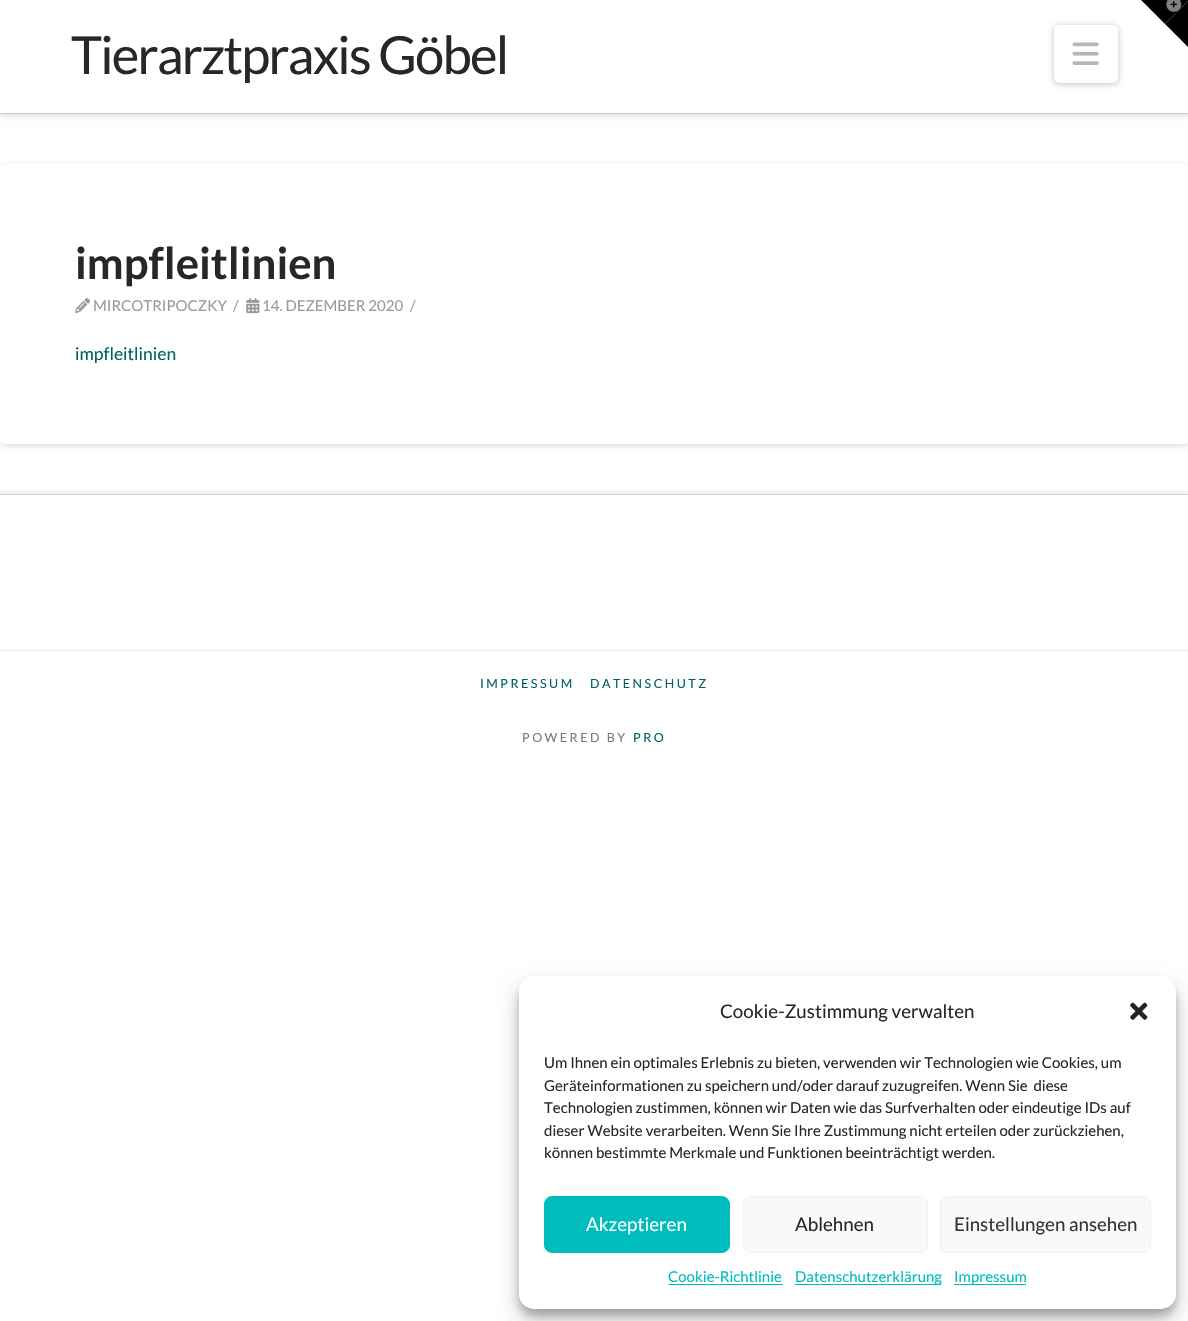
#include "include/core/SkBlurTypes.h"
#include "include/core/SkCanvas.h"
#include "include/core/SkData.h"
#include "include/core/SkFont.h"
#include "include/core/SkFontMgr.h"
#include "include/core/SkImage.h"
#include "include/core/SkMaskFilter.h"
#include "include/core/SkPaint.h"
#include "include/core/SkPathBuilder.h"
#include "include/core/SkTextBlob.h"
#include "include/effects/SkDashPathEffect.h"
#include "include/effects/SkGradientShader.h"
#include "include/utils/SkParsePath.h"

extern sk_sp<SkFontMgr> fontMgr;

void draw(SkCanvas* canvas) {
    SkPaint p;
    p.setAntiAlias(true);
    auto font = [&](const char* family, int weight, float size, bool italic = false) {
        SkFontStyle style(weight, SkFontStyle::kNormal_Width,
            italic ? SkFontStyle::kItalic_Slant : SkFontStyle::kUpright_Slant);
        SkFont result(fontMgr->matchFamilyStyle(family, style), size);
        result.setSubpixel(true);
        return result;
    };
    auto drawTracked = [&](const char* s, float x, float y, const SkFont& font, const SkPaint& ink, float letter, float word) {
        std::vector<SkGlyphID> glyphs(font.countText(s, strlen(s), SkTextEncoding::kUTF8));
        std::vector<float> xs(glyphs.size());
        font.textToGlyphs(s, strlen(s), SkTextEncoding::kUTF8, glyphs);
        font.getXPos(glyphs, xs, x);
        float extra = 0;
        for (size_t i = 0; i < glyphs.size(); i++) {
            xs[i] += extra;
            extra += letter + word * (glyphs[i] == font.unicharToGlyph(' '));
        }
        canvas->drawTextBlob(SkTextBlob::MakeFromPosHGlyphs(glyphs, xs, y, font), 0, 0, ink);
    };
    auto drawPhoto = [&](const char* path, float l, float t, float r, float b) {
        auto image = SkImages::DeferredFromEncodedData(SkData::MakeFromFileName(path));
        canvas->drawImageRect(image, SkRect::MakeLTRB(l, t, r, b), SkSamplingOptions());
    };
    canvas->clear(0xFFFFFFFF);
    p.setColor(0x21000000);
    p.setMaskFilter(SkMaskFilter::MakeBlur(kNormal_SkBlurStyle, 3));
    canvas->drawRect(SkRect::MakeLTRB(0, 3, 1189, 116), p);
    p.setMaskFilter(nullptr);
    p.setColor(0xFFFFFFFF);
    canvas->drawRect(SkRect::MakeLTRB(0, 0, 1188, 113), p);
    p.setColor(0xFF000000);
    canvas->drawPath(SkPathBuilder().moveTo(1141, 0).lineTo(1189, 0).lineTo(1165, 24).close().detach(), p);
    canvas->drawPath(SkPathBuilder().moveTo(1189, 0).lineTo(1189, 48).lineTo(1165, 24).close().detach(), p);
    drawPhoto("media/1.png", 1166, 0, 1182, 12);
    p.setColor(0xFFCCCCCC);
    canvas->drawRect(SkRect::MakeLTRB(0, 113, 1188, 114), p);
    auto font1 = font("Lato", 400, 52.5f);
    p.setColor(0xFF272727);
    drawTracked("Tierarztpraxis Göbel", 71, 74, font1, p, -1.8f, 0);
    p.setColor(0x40000000);
    p.setMaskFilter(SkMaskFilter::MakeBlur(kNormal_SkBlurStyle, 3));
    canvas->drawRoundRect(SkRect::MakeLTRB(1054, 26, 1118, 84), 5, 5, p);
    p.setMaskFilter(nullptr);
    p.setColor(0xFFFFFFFF);
    canvas->drawRoundRect(SkRect::MakeLTRB(1054, 25, 1118, 83), 5, 5, p);
    drawPhoto("media/2.png", 1072, 42, 1099, 65);
    p.setColor(0x21000000);
    p.setMaskFilter(SkMaskFilter::MakeBlur(kNormal_SkBlurStyle, 3));
    canvas->drawRoundRect(SkRect::MakeLTRB(0, 166, 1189, 446), 5, 5, p);
    p.setMaskFilter(nullptr);
    p.setColor(0xFFFFFFFF);
    canvas->drawRoundRect(SkRect::MakeLTRB(0, 164, 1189, 444), 5, 5, p);
    auto font2 = font("Lato", 700, 43.75f);
    p.setColor(0xFF272727);
    canvas->drawString("impfleitlinien", 75, 279, font2, p);
    drawPhoto("media/3.png", 75, 298, 90, 313);
    auto font3 = font("Lato", 400, 15);
    p.setColor(0xFF999999);
    canvas->drawString("MIRCOTRIPOCZKY", 93, 311, font3, p);
    canvas->drawString("/", 233, 311, font3, p);
    drawPhoto("media/4.png", 246, 298, 260, 314);
    canvas->drawString("14. DEZEMBER 2020", 262, 311, font3, p);
    canvas->drawString("/", 410, 311, font3, p);
    auto font4 = font("Lato", 400, 17.5f);
    p.setColor(0xFF006161);
    canvas->drawString("impfleitlinien", 75, 360, font4, p);
    canvas->save();
    canvas->clipRect(SkRect::MakeLTRB(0, 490, 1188, 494));
    p.setColor(0x12000000);
    p.setMaskFilter(SkMaskFilter::MakeBlur(kNormal_SkBlurStyle, 2));
    canvas->drawRect(SkRect::MakeLTRB(0, 491, 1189, 648), p);
    p.setMaskFilter(nullptr);
    canvas->restore();
    p.setColor(0xFFD4D4D4);
    canvas->drawRect(SkRect::MakeLTRB(0, 494, 1188, 495), p);
    p.setColor(0xFFE9E9E9);
    canvas->drawRect(SkRect::MakeLTRB(0, 650, 1188, 651), p);
    auto font5 = font("Lato", 400, 12.5f);
    p.setColor(0xFF006161);
    drawTracked("IMPRESSUM", 480, 688, font5, p, 2.5f, 0);
    drawTracked("DATENSCHUTZ", 590, 688, font5, p, 2.5f, 0);
    p.setColor(0xFF7A7A7A);
    drawTracked("POWERED BY", 522, 742, font5, p, 2.5f, 0);
    p.setColor(0xFF006161);
    drawTracked("PRO", 633, 742, font5, p, 2.5f, 0);
    p.setColor(0x3B000000);
    p.setMaskFilter(SkMaskFilter::MakeBlur(kNormal_SkBlurStyle, 4));
    canvas->drawRoundRect(SkRect::MakeLTRB(519, 984, 1176, 1316), 15, 15, p);
    p.setMaskFilter(nullptr);
    p.setColor(0x30000000);
    p.setMaskFilter(SkMaskFilter::MakeBlur(kNormal_SkBlurStyle, 12.5f));
    canvas->drawRoundRect(SkRect::MakeLTRB(519, 989, 1176, 1321), 15, 15, p);
    p.setMaskFilter(nullptr);
    p.setColor(0xFFFFFFFF);
    canvas->drawRoundRect(SkRect::MakeLTRB(519, 976, 1176, 1309), 15, 15, p);
    auto font6 = font("Lato", 400, 18.75f);
    p.setColor(0xFF272727);
    canvas->drawString("Cookie-Zustimmung verwalten", 720, 1018, font6, p);
    drawPhoto("media/5.png", 1130, 1002, 1148, 1020);
    {
        const struct { const char* s; float x, y; } items[] = {
            {"Um Ihnen ein optimales Erlebnis zu bieten, verwenden wir Technologien wie Cookies, um", 544, 1068},
            {"Geräteinformationen zu speichern und/oder darauf zuzugreifen. Wenn Sie  diese", 544, 1091},
            {"Technologien zustimmen, können wir Daten wie das Surfverhalten oder eindeutige IDs auf", 544, 1113},
            {"dieser Website verarbeiten. Wenn Sie Ihre Zustimmung nicht erteilen oder zurückziehen,", 544, 1136},
            {"können bestimmte Merkmale und Funktionen beeinträchtigt werden.", 544, 1158},
        };
        for (auto [s, x, y] : items) {
            canvas->drawString(s, x, y, font3, p);
        }
    }
    p.setColor(0xFF00BDBD);
    canvas->drawRoundRect(SkRect::MakeLTRB(544.5f, 1196.5f, 729.5f, 1252.5f), 7.5f, 7.5f, p);
    p.setStyle(SkPaint::kStroke_Style);
    p.setStrokeWidth(1);
    canvas->drawRoundRect(SkRect::MakeLTRB(544.5f, 1196.5f, 729.5f, 1252.5f), 7.5f, 7.5f, p);
    p.setStyle(SkPaint::kFill_Style);
    p.setColor(0xFFFFFFFF);
    canvas->drawString("Akzeptieren", 586, 1231, font6, p);
    p.setColor(0xFFF9F9F9);
    canvas->drawRoundRect(SkRect::MakeLTRB(743.5f, 1196.5f, 927.5f, 1252.5f), 7.5f, 7.5f, p);
    p.setStyle(SkPaint::kStroke_Style);
    p.setColor(0xFFF2F2F2);
    canvas->drawRoundRect(SkRect::MakeLTRB(743.5f, 1196.5f, 927.5f, 1252.5f), 7.5f, 7.5f, p);
    p.setStyle(SkPaint::kFill_Style);
    p.setColor(0xFF272727);
    canvas->drawString("Ablehnen", 795, 1231, font6, p);
    p.setColor(0xFFF9F9F9);
    canvas->drawRoundRect(SkRect::MakeLTRB(940.5f, 1196.5f, 1150.5f, 1252.5f), 7.5f, 7.5f, p);
    p.setStyle(SkPaint::kStroke_Style);
    p.setColor(0xFFF2F2F2);
    canvas->drawRoundRect(SkRect::MakeLTRB(940.5f, 1196.5f, 1150.5f, 1252.5f), 7.5f, 7.5f, p);
    p.setStyle(SkPaint::kFill_Style);
    p.setColor(0xFF333333);
    canvas->drawString("Einstellungen ansehen", 954, 1231, font6, p);
    p.setColor(0xFF00BDBD);
    canvas->drawString("Cookie-Richtlinie", 668, 1282, font3, p);
    canvas->drawRect(SkRect::MakeLTRB(669, 1284, 783, 1285), p);
    canvas->drawRect(SkRect::MakeLTRB(795, 1284, 941, 1285), p);
    canvas->drawString("Datenschutzerklärung", 795, 1282, font3, p);
    canvas->drawRect(SkRect::MakeLTRB(954, 1284, 1026, 1285), p);
    canvas->drawString("Impressum", 954, 1282, font3, p);
}
